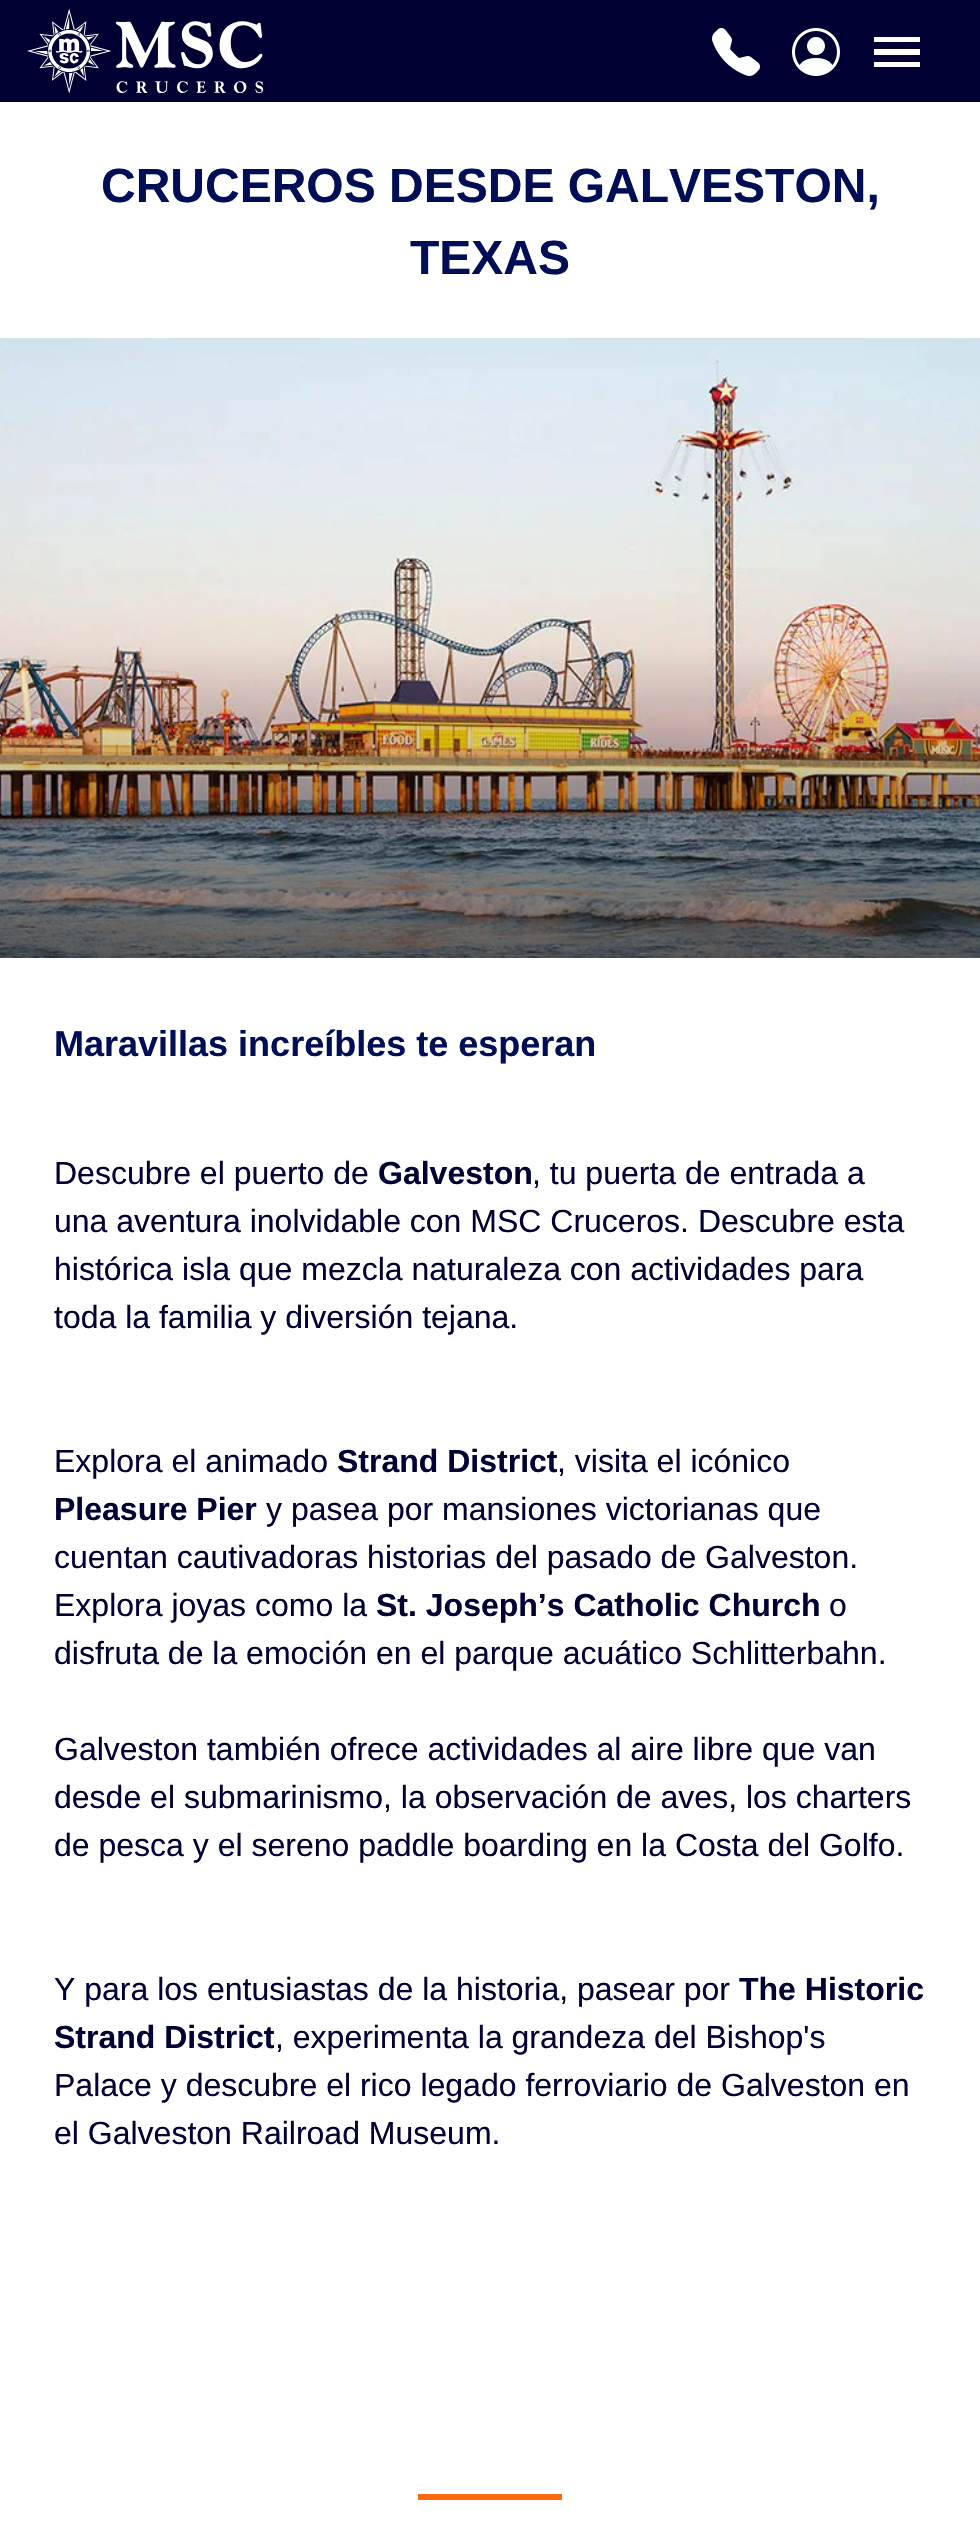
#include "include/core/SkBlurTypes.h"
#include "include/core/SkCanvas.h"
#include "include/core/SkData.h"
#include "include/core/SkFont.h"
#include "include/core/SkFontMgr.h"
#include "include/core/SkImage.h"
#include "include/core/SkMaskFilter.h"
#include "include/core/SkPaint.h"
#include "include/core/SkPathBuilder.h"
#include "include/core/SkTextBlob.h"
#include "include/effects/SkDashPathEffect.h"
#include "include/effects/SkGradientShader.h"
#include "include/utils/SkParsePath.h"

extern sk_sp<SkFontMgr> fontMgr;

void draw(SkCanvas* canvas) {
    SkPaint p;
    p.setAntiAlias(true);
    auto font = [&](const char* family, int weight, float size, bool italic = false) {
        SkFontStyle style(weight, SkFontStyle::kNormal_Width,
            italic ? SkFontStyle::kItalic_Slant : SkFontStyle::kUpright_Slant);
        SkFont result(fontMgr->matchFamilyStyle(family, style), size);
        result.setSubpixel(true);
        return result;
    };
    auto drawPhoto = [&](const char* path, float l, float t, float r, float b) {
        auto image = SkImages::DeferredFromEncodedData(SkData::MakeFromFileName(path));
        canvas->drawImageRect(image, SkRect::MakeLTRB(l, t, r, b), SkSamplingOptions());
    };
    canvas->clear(0xFFFFFFFF);
    p.setColor(0xFF000033);
    canvas->drawRect(SkRect::MakeLTRB(0, 0, 980, 102), p);
    drawPhoto("media/1.png", 27, 8, 264, 94);
    drawPhoto("media/2.png", 712, 28, 760, 76);
    drawPhoto("media/3.png", 792, 28, 840, 76);
    p.setColor(0xFFFFFFFF);
    canvas->drawPath(SkPathBuilder().moveTo(874, 67).lineTo(920, 67).lineTo(920, 62).lineTo(874, 62).close().moveTo(874, 55).lineTo(920, 55).lineTo(920, 49).lineTo(874, 49).close().moveTo(874, 37).lineTo(874, 42).lineTo(920, 42).lineTo(920, 37).close().detach(), p);
    auto font1 = font("Liberation Sans", 700, 48);
    p.setColor(0xFF000E55);
    canvas->drawString("CRUCEROS DESDE GALVESTON,", 101, 202, font1, p);
    canvas->drawString("TEXAS", 410, 274, font1, p);
    drawPhoto("media/4.png", 0, 338, 980, 958);
    auto font2 = font("Liberation Sans", 700, 36);
    canvas->drawString("Maravillas increíbles te esperan", 54, 1056, font2, p);
    auto font3 = font("Liberation Sans", 400, 32);
    p.setColor(0xFF000033);
    canvas->drawString("Descubre el puerto de", 54, 1184, font3, p);
    auto font4 = font("Liberation Sans", 700, 32);
    canvas->drawString("Galveston", 378, 1184, font4, p);
    {
        const struct { const char* s; float x, y; } items[] = {
            {", tu puerta de entrada a", 532, 1184},
            {"una aventura inolvidable con MSC Cruceros. Descubre esta", 54, 1232},
            {"histórica isla que mezcla naturaleza con actividades para", 54, 1280},
            {"toda la familia y diversión tejana.", 54, 1328},
            {"Explora el animado", 54, 1472},
        };
        for (auto [s, x, y] : items) {
            canvas->drawString(s, x, y, font3, p);
        }
    }
    canvas->drawString("Strand District", 337, 1472, font4, p);
    canvas->drawString(", visita el icónico", 557, 1472, font3, p);
    canvas->drawString("Pleasure Pier", 54, 1520, font4, p);
    {
        const struct { const char* s; float x, y; } items[] = {
            {"y pasea por mansiones victorianas que", 266, 1520},
            {"cuentan cautivadoras historias del pasado de Galveston.", 54, 1568},
            {"Explora joyas como la", 54, 1616},
        };
        for (auto [s, x, y] : items) {
            canvas->drawString(s, x, y, font3, p);
        }
    }
    canvas->drawString("St. Joseph’s Catholic Church", 376, 1616, font4, p);
    {
        const struct { const char* s; float x, y; } items[] = {
            {"o", 829, 1616},
            {"disfruta de la emoción en el parque acuático Schlitterbahn.", 54, 1664},
            {"Galveston también ofrece actividades al aire libre que van", 54, 1760},
            {"desde el submarinismo, la observación de aves, los charters", 54, 1808},
            {"de pesca y el sereno paddle boarding en la Costa del Golfo.", 54, 1856},
            {"Y para los entusiastas de la historia, pasear por", 54, 2000},
        };
        for (auto [s, x, y] : items) {
            canvas->drawString(s, x, y, font3, p);
        }
    }
    canvas->drawString("The Historic", 739, 2000, font4, p);
    canvas->drawString("Strand District", 54, 2048, font4, p);
    {
        const struct { const char* s; float x, y; } items[] = {
            {", experimenta la grandeza del Bishop's", 275, 2048},
            {"Palace y descubre el rico legado ferroviario de Galveston en", 54, 2096},
            {"el Galveston Railroad Museum.", 54, 2144},
        };
        for (auto [s, x, y] : items) {
            canvas->drawString(s, x, y, font3, p);
        }
    }
    p.setColor(0xFFFF690E);
    canvas->drawRect(SkRect::MakeLTRB(418, 2494, 562, 2500), p);
}
